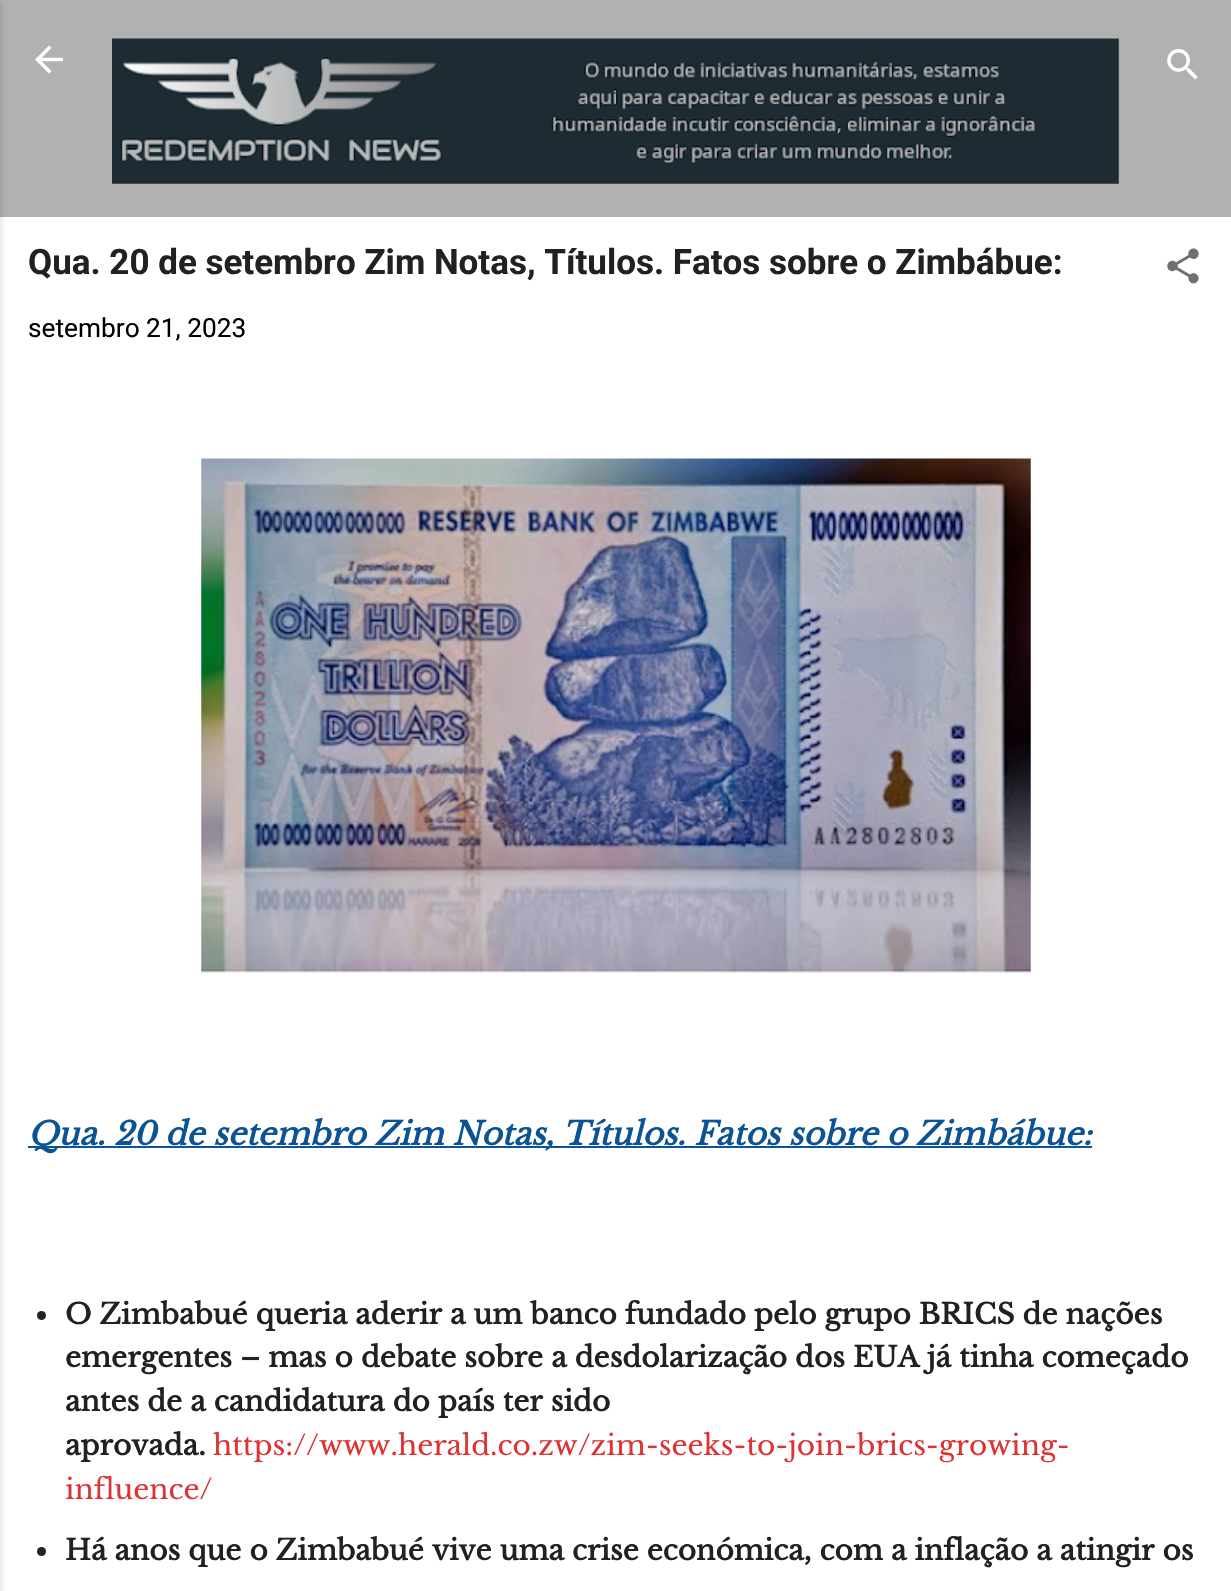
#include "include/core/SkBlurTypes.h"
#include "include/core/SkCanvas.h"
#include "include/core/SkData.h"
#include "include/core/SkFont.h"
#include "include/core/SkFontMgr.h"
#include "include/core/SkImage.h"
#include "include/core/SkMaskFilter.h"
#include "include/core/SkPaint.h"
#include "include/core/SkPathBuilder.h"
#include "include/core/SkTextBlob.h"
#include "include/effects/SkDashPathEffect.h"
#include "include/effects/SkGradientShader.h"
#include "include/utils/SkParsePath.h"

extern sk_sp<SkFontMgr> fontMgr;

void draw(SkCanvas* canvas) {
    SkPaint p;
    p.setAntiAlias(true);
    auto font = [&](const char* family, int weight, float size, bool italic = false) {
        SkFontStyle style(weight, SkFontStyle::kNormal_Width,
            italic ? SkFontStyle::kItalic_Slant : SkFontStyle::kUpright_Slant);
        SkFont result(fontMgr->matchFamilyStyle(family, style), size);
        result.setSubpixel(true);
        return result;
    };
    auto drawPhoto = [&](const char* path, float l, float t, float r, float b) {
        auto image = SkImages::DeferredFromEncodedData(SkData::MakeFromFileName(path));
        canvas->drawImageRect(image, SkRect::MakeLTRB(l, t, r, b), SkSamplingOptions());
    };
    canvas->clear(0xFFB1B1B1);
    p.setColor(0xFFFFFFFF);
    canvas->drawRect(SkRect::MakeLTRB(0, 217, 1231, 1591), p);
    p.setColor(0x1A000000);
    p.setMaskFilter(SkMaskFilter::MakeBlur(kNormal_SkBlurStyle, 2.5f));
    canvas->drawRect(SkRect::MakeLTRB(-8, 2, 2, 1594), p);
    p.setMaskFilter(nullptr);
    drawPhoto("media/1.png", 35, 45, 63, 74);
    drawPhoto("media/2.png", 112, 38, 1120, 184);
    drawPhoto("media/3.png", 1167, 49, 1198, 80);
    auto font1 = font("Roboto", 700, 35);
    p.setColor(0xFF212121);
    canvas->drawString("Qua. 20 de setembro Zim Notas, Títulos. Fatos sobre o Zimbábue:", 28, 274, font1, p);
    drawPhoto("media/4.png", 1167, 248, 1199, 284);
    auto font2 = font("Roboto", 400, 26.25f);
    p.setColor(0xFF000000);
    canvas->drawString("setembro 21, 2023", 28, 337, font2, p);
    drawPhoto("media/5.png", 201, 458, 1031, 973);
    p.setColor(0xFF0B5394);
    canvas->drawRect(SkRect::MakeLTRB(28, 1146, 1092, 1148), p);
    auto font3 = font("Libre Baskerville", 700, 31.5f, true);
    canvas->drawString("Qua. 20 de setembro Zim Notas, Títulos. Fatos sobre o Zimbábue:", 28, 1145, font3, p);
    p.setColor(0xFF222222);
    canvas->drawCircle(41.5f, 1315.5f, 4.5f, p);
    auto font4 = font("Libre Baskerville", 700, 28);
    p.setColor(0xFF212121);
    {
        const struct { const char* s; float x, y; } items[] = {
            {"O Zimbabué queria aderir a um banco fundado pelo grupo BRICS de nações", 65, 1324},
            {"emergentes – mas o debate sobre a desdolarização dos EUA já tinha começado", 65, 1367},
            {"antes de a candidatura do país ter sido", 65, 1411},
            {"aprovada.", 65, 1455},
        };
        for (auto [s, x, y] : items) {
            canvas->drawString(s, x, y, font4, p);
        }
    }
    auto font5 = font("Libre Baskerville", 400, 28);
    p.setColor(0xFFDD3333);
    canvas->drawString("https://www.herald.co.zw/zim-seeks-to-join-brics-growing-", 213, 1455, font5, p);
    canvas->drawString("influence/", 65, 1499, font5, p);
    p.setColor(0xFF222222);
    canvas->drawCircle(41.5f, 1551.5f, 4.5f, p);
    p.setColor(0xFF212121);
    canvas->drawString("Há anos que o Zimbabué vive uma crise económica, com a inflação a atingir os", 65, 1560, font4, p);
}
